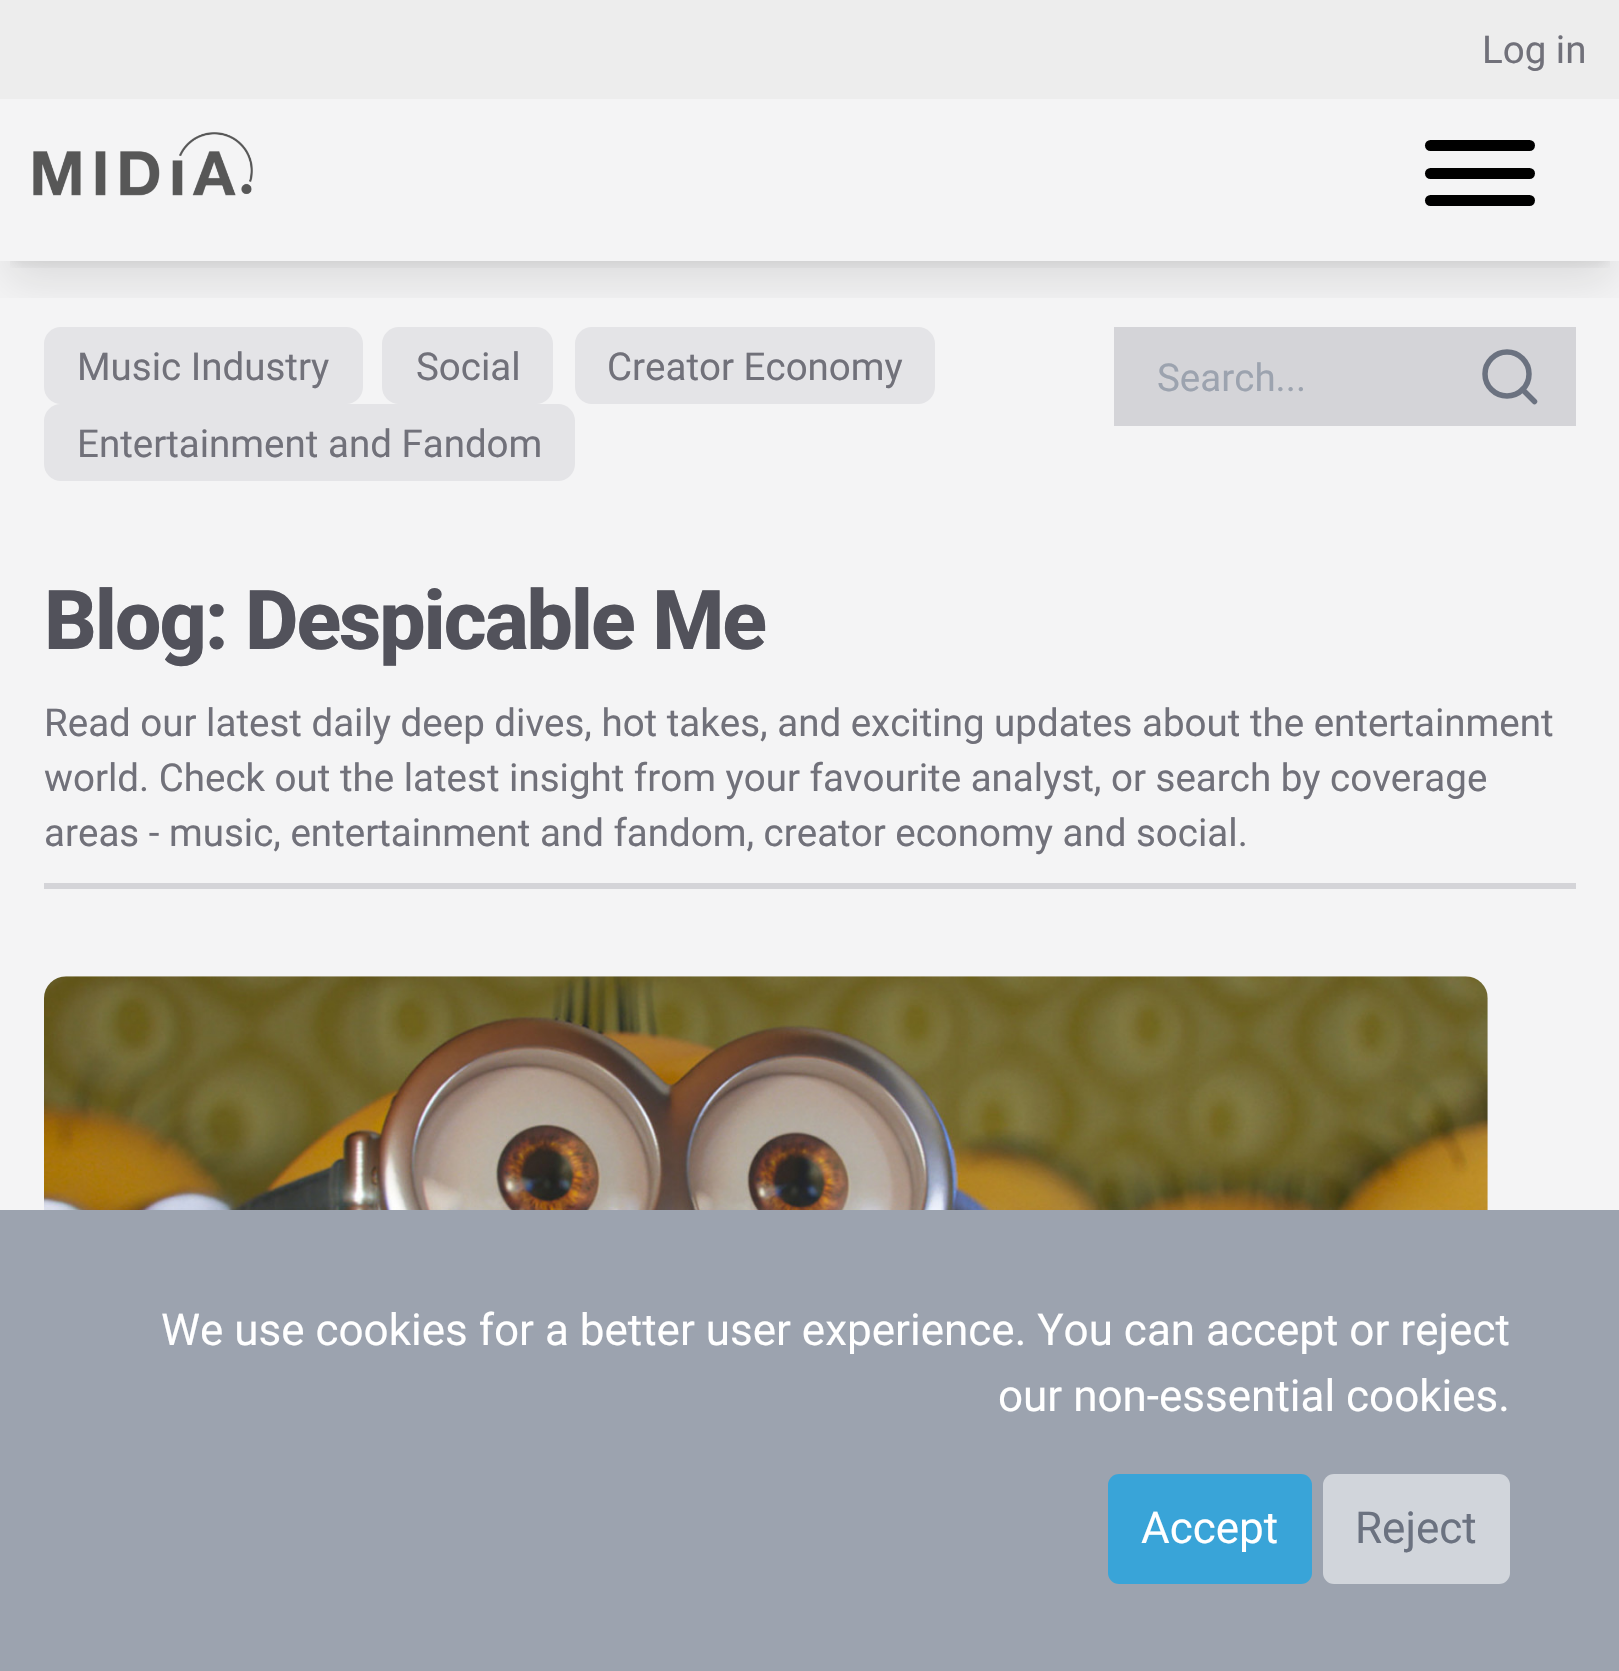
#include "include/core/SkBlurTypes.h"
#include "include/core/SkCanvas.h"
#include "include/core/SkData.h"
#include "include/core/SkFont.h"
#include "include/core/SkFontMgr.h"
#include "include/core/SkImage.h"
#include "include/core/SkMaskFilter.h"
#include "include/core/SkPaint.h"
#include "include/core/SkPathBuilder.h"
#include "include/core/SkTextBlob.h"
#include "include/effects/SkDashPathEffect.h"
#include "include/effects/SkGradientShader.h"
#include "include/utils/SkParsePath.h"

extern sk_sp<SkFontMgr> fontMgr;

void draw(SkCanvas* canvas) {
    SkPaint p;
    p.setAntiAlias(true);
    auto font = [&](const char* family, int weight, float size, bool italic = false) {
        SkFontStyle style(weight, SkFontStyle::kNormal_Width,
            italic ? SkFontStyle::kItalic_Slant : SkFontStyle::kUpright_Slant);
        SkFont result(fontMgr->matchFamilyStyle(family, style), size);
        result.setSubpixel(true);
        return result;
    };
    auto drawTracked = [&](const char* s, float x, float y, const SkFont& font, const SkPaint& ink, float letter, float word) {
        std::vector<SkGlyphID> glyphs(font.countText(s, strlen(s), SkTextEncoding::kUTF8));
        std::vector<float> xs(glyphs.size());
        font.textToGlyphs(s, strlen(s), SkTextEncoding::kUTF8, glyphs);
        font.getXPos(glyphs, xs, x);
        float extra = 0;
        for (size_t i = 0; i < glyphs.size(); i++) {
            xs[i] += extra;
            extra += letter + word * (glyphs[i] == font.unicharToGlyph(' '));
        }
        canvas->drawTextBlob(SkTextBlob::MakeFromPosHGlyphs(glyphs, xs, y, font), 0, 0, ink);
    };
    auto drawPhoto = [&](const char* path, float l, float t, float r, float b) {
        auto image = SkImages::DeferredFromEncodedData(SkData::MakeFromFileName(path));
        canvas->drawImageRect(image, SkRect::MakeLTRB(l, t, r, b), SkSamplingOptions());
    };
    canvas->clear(0xFFF4F4F5);
    p.setColor(0xFFEDEDED);
    canvas->drawRect(SkRect::MakeLTRB(0, 0, 1619, 99), p);
    auto font1 = font("Roboto", 400, 38.5f);
    p.setColor(0xFF71717A);
    canvas->drawString("Log in", 1482, 63, font1, p);
    canvas->save();
    canvas->clipRect(SkRect::MakeLTRB(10, 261, 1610, 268));
    p.setColor(0x1A000000);
    p.setMaskFilter(SkMaskFilter::MakeBlur(kNormal_SkBlurStyle, 8));
    canvas->drawRect(SkRect::MakeLTRB(11, 121, 1609, 261), p);
    p.setMaskFilter(nullptr);
    canvas->restore();
    p.setColor(0xFFE4E4E7);
    canvas->drawRoundRect(SkRect::MakeLTRB(44, 327, 363, 404), 17, 17, p);
    canvas->drawRoundRect(SkRect::MakeLTRB(382, 327, 553, 404), 17, 17, p);
    canvas->drawRoundRect(SkRect::MakeLTRB(575, 327, 935, 404), 17, 17, p);
    canvas->save();
    canvas->clipRect(SkRect::MakeLTRB(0, 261, 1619, 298));
    p.setColor(0x1A000000);
    p.setMaskFilter(SkMaskFilter::MakeBlur(kNormal_SkBlurStyle, 20.5f));
    canvas->drawRect(SkRect::MakeLTRB(8, 135, 1612, 281), p);
    p.setMaskFilter(nullptr);
    canvas->restore();
    drawPhoto("media/1.png", 33, 132, 253, 196);
    p.setColor(0xFF000000);
    canvas->drawRoundRect(SkRect::MakeLTRB(1425, 195, 1535, 206), 5.5f, 5.5f, p);
    canvas->drawRoundRect(SkRect::MakeLTRB(1425, 140, 1535, 151), 5.5f, 5.5f, p);
    canvas->drawRoundRect(SkRect::MakeLTRB(1425, 168, 1535, 179), 5.5f, 5.5f, p);
    p.setColor(0xFF71717A);
    {
        const struct { const char* s; float x, y; } items[] = {
            {"Music Industry", 77, 380},
            {"Social", 416, 380},
            {"Creator Economy", 607, 380},
        };
        for (auto [s, x, y] : items) {
            canvas->drawString(s, x, y, font1, p);
        }
    }
    p.setColor(0xFFE4E4E7);
    canvas->drawRoundRect(SkRect::MakeLTRB(44, 404, 575, 481), 17, 17, p);
    p.setColor(0xFF71717A);
    canvas->drawString("Entertainment and Fandom", 77, 457, font1, p);
    p.setColor(0xFFD4D4D8);
    canvas->drawRect(SkRect::MakeLTRB(1114, 327, 1576, 426), p);
    p.setColor(0xFF9CA3AF);
    canvas->drawString("Search...", 1157, 391, font1, p);
    p.setStyle(SkPaint::kStroke_Style);
    p.setStrokeWidth(5.5f);
    p.setColor(0xFF6B7280);
    canvas->drawCircle(1507, 374, 22, p);
    p.setStrokeCap(SkPaint::kRound_Cap);
    p.setStrokeJoin(SkPaint::kRound_Join);
    canvas->drawPath(SkPathBuilder().moveTo(1534.5f, 401.5f).lineTo(1522.5f, 389.5f).detach(), p);
    p.setStyle(SkPaint::kFill_Style);
    p.setColor(0xFFD4D4D8);
    canvas->drawRect(SkRect::MakeLTRB(44, 883, 1576, 889), p);
    auto font2 = font("Roboto", 800, 82.5f);
    p.setColor(0xFF52525B);
    drawTracked("Blog: Despicable Me", 44, 649, font2, p, -2.1f, 0);
    p.setColor(0xFF71717A);
    {
        const struct { const char* s; float x, y; } items[] = {
            {"Read our latest daily deep dives, hot takes, and exciting updates about the entertainment", 44, 736},
            {"world. Check out the latest insight from your favourite analyst, or search by coverage", 44, 791},
            {"areas - music, entertainment and fandom, creator economy and social.", 44, 846},
        };
        for (auto [s, x, y] : items) {
            canvas->drawString(s, x, y, font1, p);
        }
    }
    drawPhoto("media/2.png", 44, 976, 1488, 1210);
    p.setColor(0xFF9CA3AF);
    canvas->drawRect(SkRect::MakeLTRB(0, 1210, 1619, 1671), p);
    auto font3 = font("Roboto", 400, 44);
    p.setColor(0xFFFFFFFF);
    canvas->drawString("We use cookies for a better user experience. You can accept or reject", 161, 1345, font3, p);
    canvas->drawString("our non-essential cookies.", 998, 1411, font3, p);
    p.setColor(0xFF39A4D8);
    canvas->drawRoundRect(SkRect::MakeLTRB(1108, 1474, 1312, 1584), 11, 11, p);
    p.setColor(0xFFFFFFFF);
    canvas->drawString("Accept", 1141, 1543, font3, p);
    p.setColor(0xFFD1D5DB);
    canvas->drawRoundRect(SkRect::MakeLTRB(1323, 1474, 1510, 1584), 11, 11, p);
    p.setColor(0xFF6B7280);
    canvas->drawString("Reject", 1355, 1543, font3, p);
}
